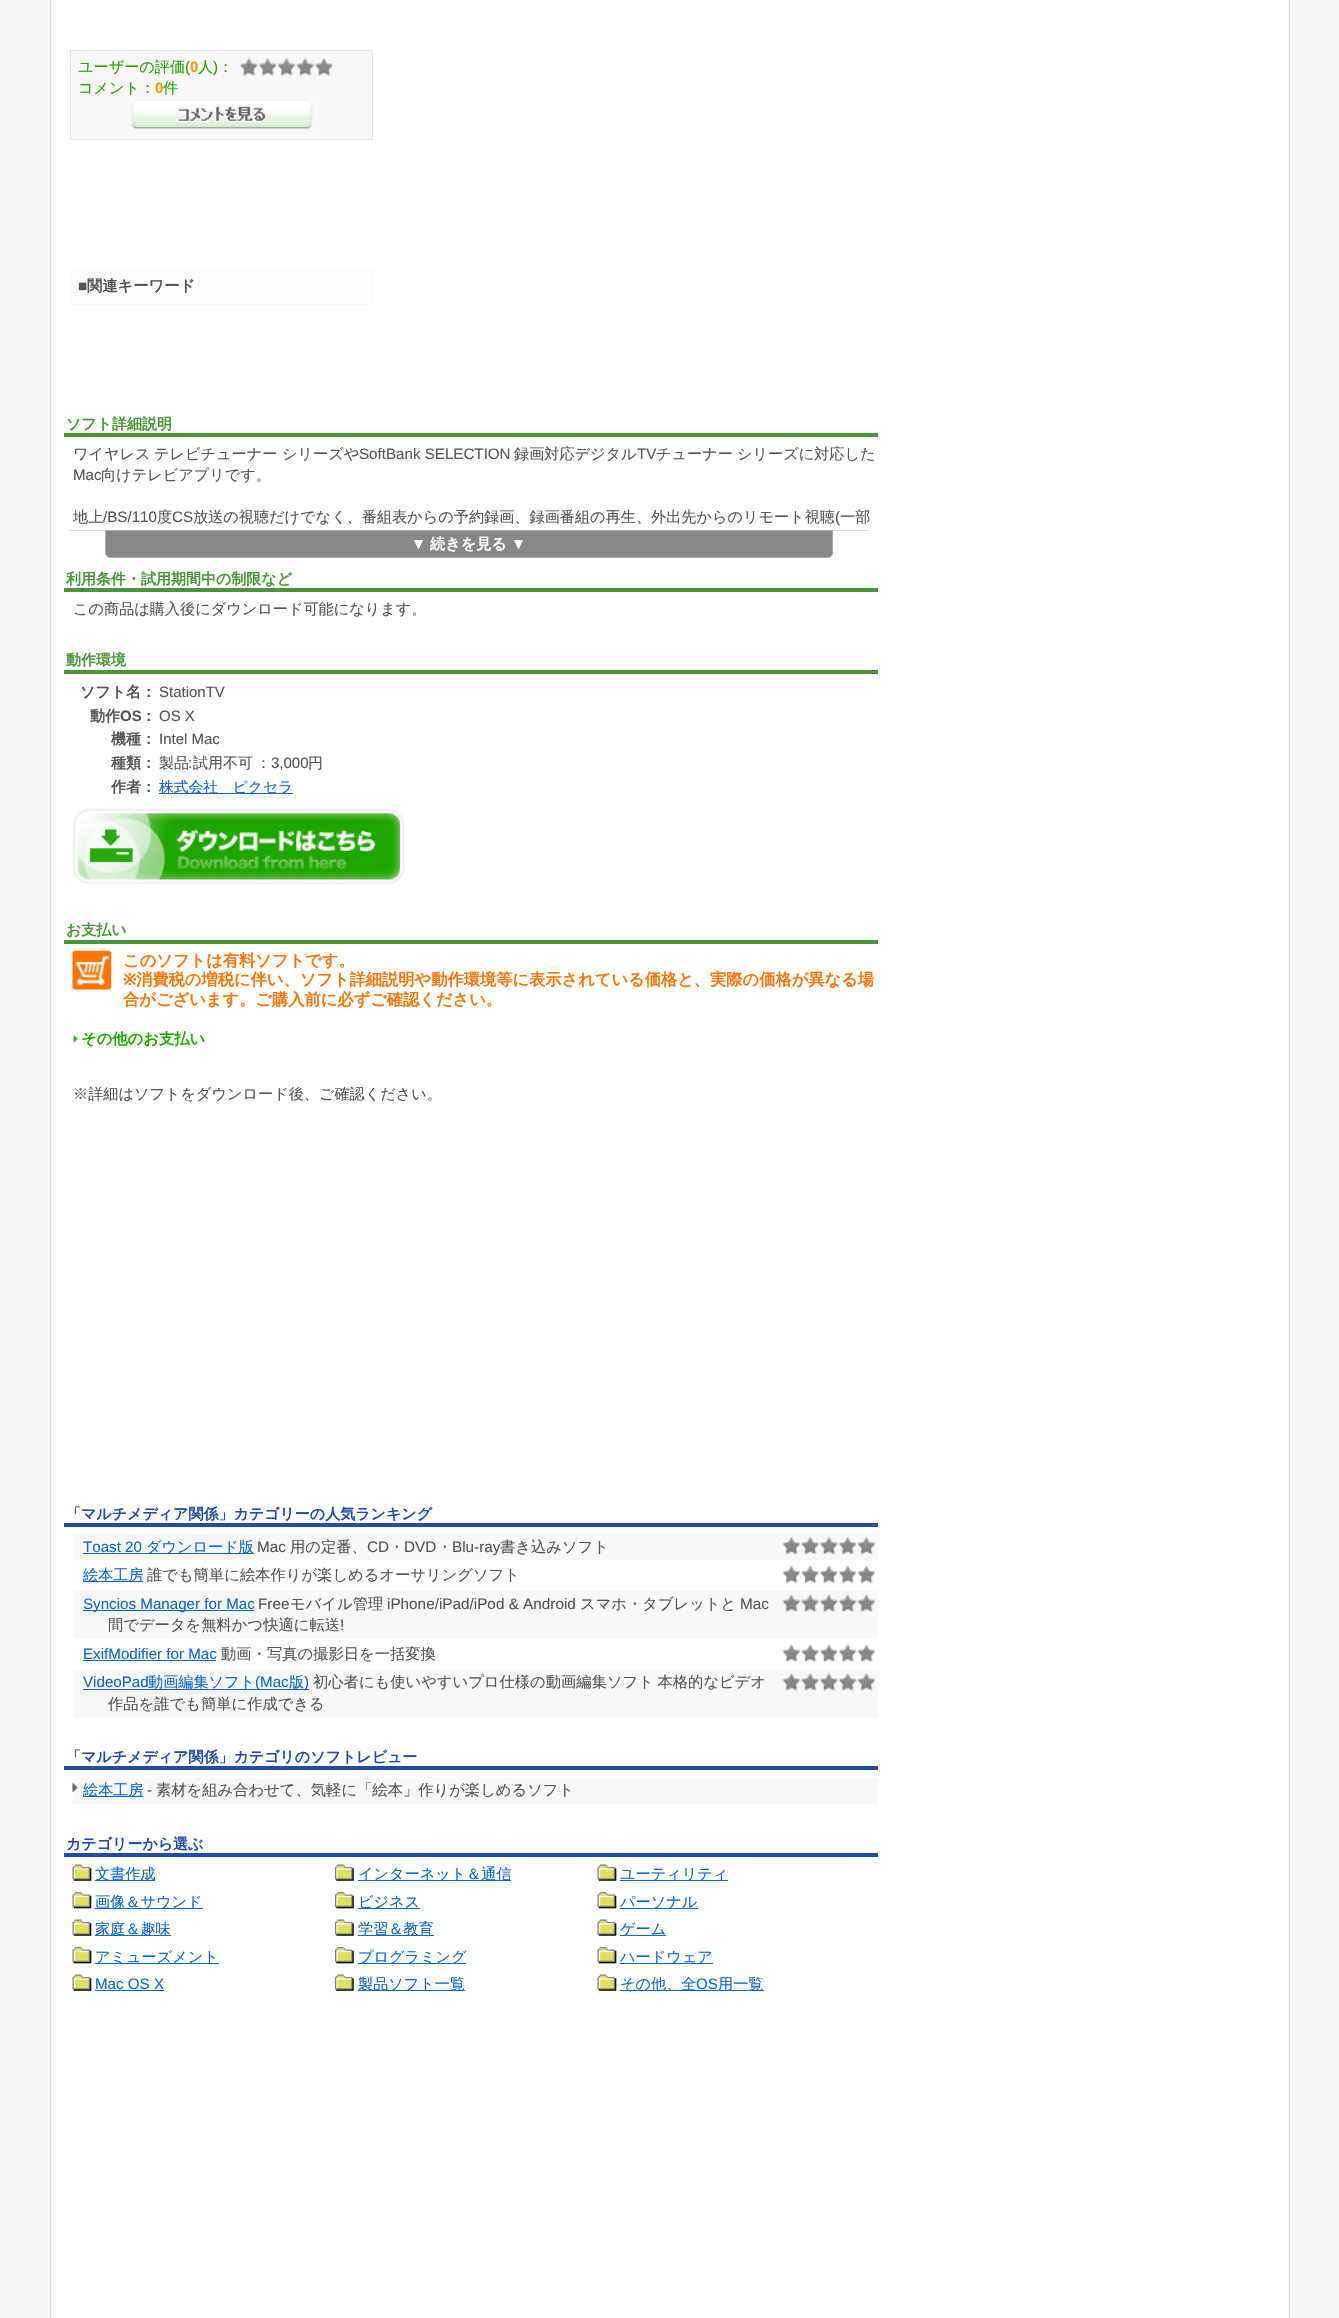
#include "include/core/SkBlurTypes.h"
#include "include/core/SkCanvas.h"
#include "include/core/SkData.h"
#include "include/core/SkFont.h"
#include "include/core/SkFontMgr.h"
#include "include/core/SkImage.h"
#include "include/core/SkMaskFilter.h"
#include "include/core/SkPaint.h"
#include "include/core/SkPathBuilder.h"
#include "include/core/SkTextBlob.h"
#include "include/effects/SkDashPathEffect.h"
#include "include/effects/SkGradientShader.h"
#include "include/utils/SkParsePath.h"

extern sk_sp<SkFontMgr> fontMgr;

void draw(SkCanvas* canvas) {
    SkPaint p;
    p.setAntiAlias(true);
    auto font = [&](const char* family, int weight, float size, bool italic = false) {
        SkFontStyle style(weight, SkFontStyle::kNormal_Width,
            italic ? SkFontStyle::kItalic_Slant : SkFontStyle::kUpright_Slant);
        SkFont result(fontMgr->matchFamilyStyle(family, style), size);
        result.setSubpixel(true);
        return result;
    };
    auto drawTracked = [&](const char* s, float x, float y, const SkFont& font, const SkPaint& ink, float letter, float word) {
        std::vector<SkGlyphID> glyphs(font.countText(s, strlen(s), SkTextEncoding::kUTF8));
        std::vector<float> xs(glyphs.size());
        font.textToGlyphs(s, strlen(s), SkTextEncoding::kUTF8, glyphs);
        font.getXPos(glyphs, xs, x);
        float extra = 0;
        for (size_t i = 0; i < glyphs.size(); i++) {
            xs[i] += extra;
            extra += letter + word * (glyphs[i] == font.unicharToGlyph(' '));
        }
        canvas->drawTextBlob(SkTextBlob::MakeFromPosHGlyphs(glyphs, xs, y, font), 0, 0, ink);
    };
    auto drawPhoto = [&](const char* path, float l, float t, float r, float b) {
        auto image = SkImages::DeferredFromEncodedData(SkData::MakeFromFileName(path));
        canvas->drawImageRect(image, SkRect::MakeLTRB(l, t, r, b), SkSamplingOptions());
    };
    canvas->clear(0xFFF5F5F5);
    drawPhoto("media/1.png", 50, 0, 1290, 2318);
    p.setColor(0xFFF8F8F8);
    canvas->drawRect(SkRect::MakeLTRB(70.5f, 50.5f, 372.5f, 139.5f), p);
    p.setStyle(SkPaint::kStroke_Style);
    p.setStrokeWidth(1);
    p.setColor(0xFFE3E3E3);
    canvas->drawRect(SkRect::MakeLTRB(70.5f, 50.5f, 372.5f, 139.5f), p);
    auto font1 = font("WenQuanYi Zen Hei", 500, 15.15f);
    p.setStyle(SkPaint::kFill_Style);
    p.setColor(0xFF1FA400);
    canvas->drawString("ユーザーの評価", 78, 72, font1, p);
    auto font2 = font("Liberation Sans", 400, 15.15f);
    canvas->drawString("(", 185, 72, font2, p);
    auto font3 = font("Liberation Sans", 700, 15);
    p.setColor(0xFFFF9900);
    canvas->drawString("0", 190, 72, font3, p);
    p.setColor(0xFF1FA400);
    canvas->drawString("人", 198, 72, font1, p);
    canvas->drawString(")", 213, 72, font2, p);
    canvas->drawString("：", 218, 72, font1, p);
    drawPhoto("media/2.png", 240, 58, 333, 76);
    canvas->drawString("コメント：", 78, 93, font1, p);
    p.setColor(0xFFFF9900);
    canvas->drawString("0", 155, 93, font3, p);
    p.setColor(0xFF1FA400);
    canvas->drawString("件", 163, 93, font1, p);
    drawPhoto("media/3.png", 131, 99, 313, 130);
    p.setColor(0xFFFCFCFC);
    canvas->drawRect(SkRect::MakeLTRB(70.5f, 269.5f, 372.5f, 304.5f), p);
    p.setStyle(SkPaint::kStroke_Style);
    p.setColor(0xFFF8F8F8);
    canvas->drawRect(SkRect::MakeLTRB(70.5f, 269.5f, 372.5f, 304.5f), p);
    auto font4 = font("Liberation Sans", 700, 15.3f);
    p.setStyle(SkPaint::kFill_Style);
    p.setColor(0xFF555555);
    canvas->drawString("■", 78, 291, font4, p);
    auto font5 = font("WenQuanYi Zen Hei", 700, 15.3f);
    canvas->drawString("関連キーワード", 87, 291, font5, p);
    p.setColor(0xFF489635);
    canvas->drawRect(SkRect::MakeLTRB(64, 433, 878, 437), p);
    auto font6 = font("WenQuanYi Zen Hei", 700, 15);
    canvas->drawString("ソフト詳細説明", 66, 429, font6, p);
    p.setColor(0xFF555555);
    {
        const struct { const char* s; float x, y; } items[] = {
            {"ワイヤレス", 73, 459},
            {"テレビチューナー", 154, 459},
            {"シリーズや", 282, 459},
        };
        for (auto [s, x, y] : items) {
            canvas->drawString(s, x, y, font1, p);
        }
    }
    canvas->drawString("SoftBank SELECTION", 359, 459, font2, p);
    canvas->drawString("録画対応デジタル", 514, 459, font1, p);
    canvas->drawString("TV", 637, 459, font2, p);
    canvas->drawString("チューナー", 656, 459, font1, p);
    canvas->drawString("シリーズに対応した", 737, 459, font1, p);
    canvas->drawString("Mac", 73, 480, font2, p);
    canvas->drawString("向けテレビアプリです。", 101, 480, font1, p);
    canvas->drawString("地上", 73, 522, font1, p);
    canvas->drawString("/BS/110", 103, 522, font2, p);
    canvas->drawString("度", 157, 522, font1, p);
    canvas->drawString("CS", 172, 522, font2, p);
    canvas->drawString("放送の視聴だけでなく、番組表からの予約録画、録画番組の再生、外出先からのリモート視聴", 193, 522, font1, p);
    canvas->drawString("(", 835, 522, font2, p);
    canvas->drawString("一部", 840, 522, font1, p);
    p.setColor(0xFFDDDDDD);
    canvas->drawRect(SkRect::MakeLTRB(69, 530, 869, 531), p);
    p.setColor(0xFF888888);
    canvas->drawPath(SkPathBuilder().moveTo(105.5f, 530.5f).lineTo(832.5f, 530.5f).lineTo(832.5f, 553).cubicTo(832.5f, 555.5f, 830.5f, 557.5f, 828, 557.5f).lineTo(110, 557.5f).cubicTo(107.5f, 557.5f, 105.5f, 555.5f, 105.5f, 553).close().detach(), p);
    p.setStyle(SkPaint::kStroke_Style);
    p.setColor(0xFFAAAAAA);
    canvas->drawPath(SkPathBuilder().moveTo(105.5f, 530.5f).lineTo(832.5f, 530.5f).lineTo(832.5f, 553).cubicTo(832.5f, 555.5f, 830.5f, 557.5f, 828, 557.5f).lineTo(110, 557.5f).cubicTo(107.5f, 557.5f, 105.5f, 555.5f, 105.5f, 553).close().detach(), p);
    auto font7 = font("Liberation Sans", 700, 15.15f);
    p.setStyle(SkPaint::kFill_Style);
    p.setColor(0xFFFFFFFF);
    canvas->drawString("▼", 411, 549, font7, p);
    auto font8 = font("WenQuanYi Zen Hei", 700, 15.15f);
    canvas->drawString("続きを見る", 430, 549, font8, p);
    canvas->drawString("▼", 511, 549, font7, p);
    p.setColor(0xFF489635);
    canvas->drawRect(SkRect::MakeLTRB(64, 588, 878, 592), p);
    canvas->drawString("利用条件・試用期間中の制限など", 66, 584, font6, p);
    p.setColor(0xFF555555);
    canvas->drawString("この商品は購入後にダウンロード可能になります。", 73, 614, font1, p);
    p.setColor(0xFF489635);
    canvas->drawRect(SkRect::MakeLTRB(64, 670, 878, 674), p);
    canvas->drawString("動作環境", 66, 665, font6, p);
    p.setColor(0xFF555555);
    canvas->drawString("ソフト名：", 80, 697, font6, p);
    auto font9 = font("Liberation Sans", 400, 15);
    canvas->drawString("StationTV", 159, 697, font9, p);
    canvas->drawString("動作", 90, 721, font6, p);
    canvas->drawString("OS", 120, 721, font3, p);
    canvas->drawString("：", 141, 721, font6, p);
    canvas->drawString("OS X", 159, 721, font9, p);
    canvas->drawString("機種：", 111, 744, font6, p);
    canvas->drawString("Intel Mac", 159, 744, font9, p);
    canvas->drawString("種類：", 111, 768, font6, p);
    auto font10 = font("WenQuanYi Zen Hei", 500, 15);
    canvas->drawString("製品", 159, 768, font10, p);
    canvas->drawString(":", 188, 768, font9, p);
    canvas->drawString("試用不可", 193, 768, font10, p);
    canvas->drawString("：", 256, 768, font10, p);
    canvas->drawString("3,000", 271, 768, font9, p);
    canvas->drawString("円", 308, 768, font10, p);
    canvas->drawString("作者：", 111, 792, font6, p);
    p.setColor(0xFF0E69CD);
    canvas->drawRect(SkRect::MakeLTRB(159, 793, 293, 794), p);
    auto font11 = font("WenQuanYi Zen Hei", 500, 14.75f);
    canvas->drawString("株式会社　ピクセラ", 159, 792, font11, p);
    drawPhoto("media/4.png", 72, 808, 405, 885);
    p.setColor(0xFF489635);
    canvas->drawRect(SkRect::MakeLTRB(64, 940, 878, 944), p);
    canvas->drawString("お支払い", 66, 935, font6, p);
    drawPhoto("media/5.png", 72, 950, 112, 990);
    auto font12 = font("WenQuanYi Zen Hei", 700, 16.25f);
    p.setColor(0xFFFF7407);
    canvas->drawString("このソフトは有料ソフトです。", 123, 966, font12, p);
    auto font13 = font("Noto Sans", 700, 16.25f);
    canvas->drawString("※", 123, 985, font13, p);
    canvas->drawString("消費税の増税に伴い、ソフト詳細説明や動作環境等に表示されている価格と、実際の価格が異なる場", 136, 985, font12, p);
    canvas->drawString("合がございます。ご購入前に必ずご確認ください。", 123, 1005, font12, p);
    drawPhoto("media/6.png", 73, 1035, 78, 1043);
    p.setColor(0xFF1FA400);
    canvas->drawString("その他のお支払い", 81, 1044, font5, p);
    p.setColor(0xFF555555);
    canvas->drawString("※詳細はソフトをダウンロード後、ご確認ください。", 73, 1099, font1, p);
    p.setColor(0xFF214DA6);
    canvas->drawRect(SkRect::MakeLTRB(64, 1523, 878, 1527), p);
    canvas->drawString("「マルチメディア関係」カテゴリーの人気ランキング", 66, 1519, font6, p);
    p.setColor(0xFFF8F8F8);
    canvas->drawRect(SkRect::MakeLTRB(73, 1534, 878, 1560), p);
    p.setColor(0xFF0E69CD);
    canvas->drawString("Toast 20", 83, 1552, font2, p);
    canvas->drawRect(SkRect::MakeLTRB(83, 1553, 254, 1554), p);
    canvas->drawString("ダウンロード版", 146, 1552, font1, p);
    auto font14 = font("Liberation Sans", 400, 15.3f);
    p.setColor(0xFF555555);
    canvas->drawString("Mac", 257, 1552, font14, p);
    auto font15 = font("WenQuanYi Zen Hei", 500, 15.3f);
    canvas->drawString("用の定番、", 290, 1552, font15, p);
    canvas->drawString("CD", 367, 1552, font14, p);
    canvas->drawString("・", 389, 1552, font15, p);
    canvas->drawString("DVD", 404, 1552, font14, p);
    canvas->drawString("・", 437, 1552, font15, p);
    canvas->drawString("Blu-ray", 452, 1552, font14, p);
    canvas->drawString("書き込みソフト", 500, 1552, font15, p);
    drawPhoto("media/7.png", 782, 1536, 875, 1555);
    p.setColor(0xFF0E69CD);
    canvas->drawRect(SkRect::MakeLTRB(83, 1581, 143, 1582), p);
    canvas->drawString("絵本工房", 83, 1580, font1, p);
    p.setColor(0xFF555555);
    canvas->drawString("誰でも簡単に絵本作りが楽しめるオーサリングソフト", 147, 1580, font15, p);
    drawPhoto("media/8.png", 782, 1565, 875, 1584);
    p.setColor(0xFFF8F8F8);
    canvas->drawRect(SkRect::MakeLTRB(73, 1591, 878, 1639), p);
    p.setColor(0xFF0E69CD);
    canvas->drawRect(SkRect::MakeLTRB(83, 1610, 254, 1611), p);
    canvas->drawString("Syncios Manager for Mac", 83, 1609, font2, p);
    p.setColor(0xFF555555);
    canvas->drawString("Free", 258, 1609, font14, p);
    canvas->drawString("モバイル管理", 290, 1609, font15, p);
    canvas->drawString("iPhone/iPad/iPod & Android", 387, 1609, font14, p);
    canvas->drawString("スマホ・タブレットと", 580, 1609, font15, p);
    canvas->drawString("Mac", 740, 1609, font14, p);
    drawPhoto("media/9.png", 782, 1594, 875, 1612);
    canvas->drawString("間でデータを無料かつ快適に転送", 108, 1630, font15, p);
    canvas->drawString("!", 340, 1630, font14, p);
    p.setColor(0xFF0E69CD);
    canvas->drawString("ExifModifier for Mac", 83, 1659, font2, p);
    canvas->drawRect(SkRect::MakeLTRB(83, 1660, 216, 1661), p);
    p.setColor(0xFF555555);
    canvas->drawString("動画・写真の撮影日を一括変換", 221, 1659, font15, p);
    drawPhoto("media/10.png", 782, 1644, 875, 1662);
    p.setColor(0xFFF8F8F8);
    canvas->drawRect(SkRect::MakeLTRB(73, 1670, 878, 1718), p);
    p.setColor(0xFF0E69CD);
    canvas->drawString("VideoPad", 83, 1687, font2, p);
    canvas->drawString("動画編集ソフト", 148, 1687, font1, p);
    canvas->drawRect(SkRect::MakeLTRB(83, 1689, 309, 1690), p);
    canvas->drawString("(Mac", 255, 1687, font2, p);
    canvas->drawString("版", 289, 1687, font1, p);
    canvas->drawString(")", 304, 1687, font2, p);
    p.setColor(0xFF555555);
    drawTracked("初心者にも使いやすいプロ仕様の動画編集ソフト 本格的なビデオ", 313, 1687, font15, p, 0, -1);
    drawPhoto("media/11.png", 782, 1673, 875, 1691);
    canvas->drawString("作品を誰でも簡単に作成できる", 108, 1709, font15, p);
    p.setColor(0xFF214DA6);
    canvas->drawRect(SkRect::MakeLTRB(64, 1766, 878, 1770), p);
    canvas->drawString("「マルチメディア関係」カテゴリのソフトレビュー", 66, 1762, font6, p);
    p.setColor(0xFFF8F8F8);
    canvas->drawRect(SkRect::MakeLTRB(73, 1778, 878, 1804), p);
    drawPhoto("media/12.png", 72, 1783, 78, 1792);
    p.setColor(0xFF0E69CD);
    canvas->drawRect(SkRect::MakeLTRB(83, 1796, 143, 1797), p);
    canvas->drawString("絵本工房", 83, 1795, font1, p);
    p.setColor(0xFF555555);
    canvas->drawString("-", 147, 1795, font14, p);
    canvas->drawString("素材を組み合わせて、気軽に「絵本」作りが楽しめるソフト", 156, 1795, font15, p);
    p.setColor(0xFF214DA6);
    canvas->drawRect(SkRect::MakeLTRB(64, 1853, 878, 1857), p);
    canvas->drawString("カテゴリーから選ぶ", 66, 1849, font6, p);
    drawPhoto("media/13.png", 72, 1864, 92, 1881);
    p.setColor(0xFF0E69CD);
    canvas->drawRect(SkRect::MakeLTRB(95, 1880, 155, 1881), p);
    canvas->drawString("文書作成", 95, 1879, font1, p);
    drawPhoto("media/14.png", 335, 1864, 354, 1881);
    canvas->drawRect(SkRect::MakeLTRB(358, 1880, 511, 1881), p);
    canvas->drawString("インターネット＆通信", 358, 1879, font1, p);
    drawPhoto("media/15.png", 597, 1864, 617, 1881);
    canvas->drawRect(SkRect::MakeLTRB(620, 1880, 728, 1881), p);
    canvas->drawString("ユーティリティ", 620, 1879, font1, p);
    drawPhoto("media/16.png", 72, 1891, 92, 1909);
    canvas->drawRect(SkRect::MakeLTRB(95, 1908, 203, 1909), p);
    canvas->drawString("画像＆サウンド", 95, 1907, font1, p);
    drawPhoto("media/17.png", 335, 1891, 354, 1909);
    canvas->drawRect(SkRect::MakeLTRB(358, 1908, 420, 1909), p);
    canvas->drawString("ビジネス", 358, 1907, font1, p);
    drawPhoto("media/18.png", 597, 1891, 617, 1909);
    canvas->drawRect(SkRect::MakeLTRB(620, 1908, 698, 1909), p);
    canvas->drawString("パーソナル", 620, 1907, font1, p);
    drawPhoto("media/13.png", 72, 1919, 92, 1936);
    canvas->drawRect(SkRect::MakeLTRB(95, 1935, 171, 1936), p);
    canvas->drawString("家庭＆趣味", 95, 1934, font1, p);
    drawPhoto("media/14.png", 335, 1919, 354, 1936);
    canvas->drawRect(SkRect::MakeLTRB(358, 1935, 434, 1936), p);
    canvas->drawString("学習＆教育", 358, 1934, font1, p);
    drawPhoto("media/15.png", 597, 1919, 617, 1936);
    canvas->drawRect(SkRect::MakeLTRB(620, 1935, 666, 1936), p);
    canvas->drawString("ゲーム", 620, 1934, font1, p);
    drawPhoto("media/16.png", 72, 1946, 92, 1964);
    canvas->drawRect(SkRect::MakeLTRB(95, 1963, 219, 1964), p);
    canvas->drawString("アミューズメント", 95, 1962, font1, p);
    drawPhoto("media/17.png", 335, 1946, 354, 1964);
    canvas->drawRect(SkRect::MakeLTRB(358, 1963, 466, 1964), p);
    canvas->drawString("プログラミング", 358, 1962, font1, p);
    drawPhoto("media/18.png", 597, 1946, 617, 1964);
    canvas->drawRect(SkRect::MakeLTRB(620, 1963, 713, 1964), p);
    canvas->drawString("ハードウェア", 620, 1962, font1, p);
    drawPhoto("media/13.png", 72, 1974, 92, 1991);
    canvas->drawString("Mac OS X", 95, 1989, font2, p);
    canvas->drawRect(SkRect::MakeLTRB(95, 1990, 164, 1991), p);
    drawPhoto("media/14.png", 335, 1974, 354, 1991);
    canvas->drawRect(SkRect::MakeLTRB(358, 1990, 465, 1991), p);
    canvas->drawString("製品ソフト一覧", 358, 1989, font1, p);
    drawPhoto("media/15.png", 597, 1974, 617, 1991);
    canvas->drawRect(SkRect::MakeLTRB(620, 1990, 764, 1991), p);
    canvas->drawString("その他、全", 620, 1989, font1, p);
    canvas->drawString("OS", 696, 1989, font2, p);
    canvas->drawString("用一覧", 718, 1989, font1, p);
}
